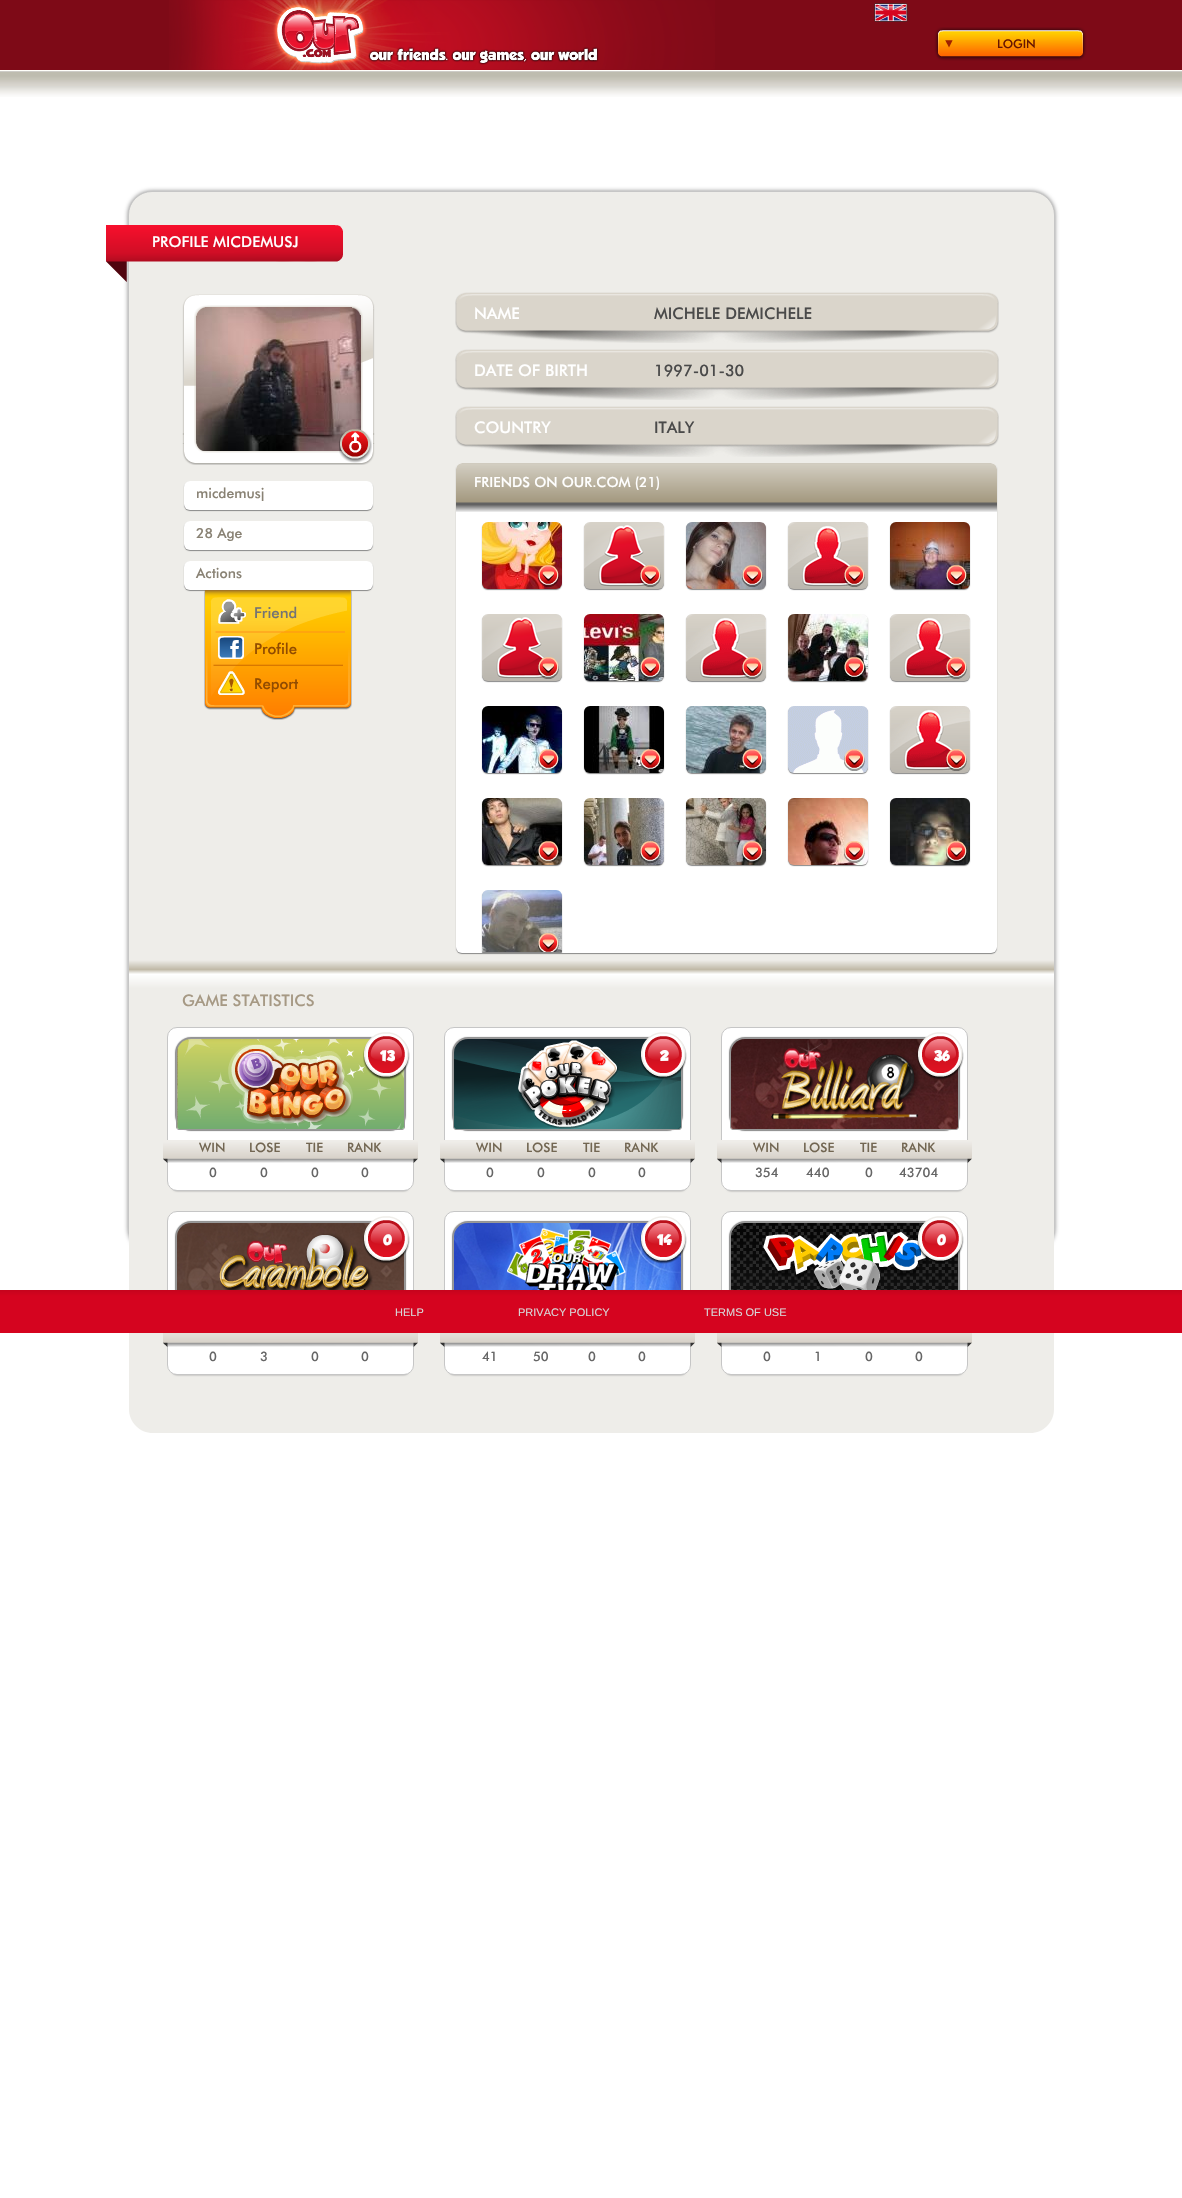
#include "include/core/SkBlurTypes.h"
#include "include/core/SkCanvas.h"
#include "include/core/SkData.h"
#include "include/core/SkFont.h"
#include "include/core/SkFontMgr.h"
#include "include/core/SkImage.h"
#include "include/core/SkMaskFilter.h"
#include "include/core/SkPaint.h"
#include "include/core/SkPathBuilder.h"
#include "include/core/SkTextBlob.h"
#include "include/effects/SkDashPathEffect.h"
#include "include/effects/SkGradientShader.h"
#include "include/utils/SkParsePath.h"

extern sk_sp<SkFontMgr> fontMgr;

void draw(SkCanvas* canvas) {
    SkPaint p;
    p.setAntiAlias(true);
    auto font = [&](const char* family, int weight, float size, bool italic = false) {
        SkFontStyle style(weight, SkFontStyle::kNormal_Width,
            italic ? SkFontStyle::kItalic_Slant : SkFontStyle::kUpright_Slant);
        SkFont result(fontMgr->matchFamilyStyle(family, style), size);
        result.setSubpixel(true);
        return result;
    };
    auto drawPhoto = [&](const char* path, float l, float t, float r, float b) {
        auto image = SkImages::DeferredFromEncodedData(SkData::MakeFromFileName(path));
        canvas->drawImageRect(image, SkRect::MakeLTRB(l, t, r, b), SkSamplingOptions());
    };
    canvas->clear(0xFFFFFFFF);
    p.setColor(0xFF7E0A17);
    canvas->drawRect(SkRect::MakeLTRB(0, 0, 1182, 70), p);
    drawPhoto("media/1.png", 169, 0, 715, 70);
    drawPhoto("media/2.png", 874, 3, 908, 22);
    drawPhoto("media/3.png", 934, 27, 1087, 61);
    auto font1 = font("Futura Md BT", 500, 12);
    p.setColor(0xFF671500);
    canvas->drawString("LOGIN", 997, 48, font1, p);
    drawPhoto("media/4.png", 0, 70, 1182, 97);
    p.setColor(0xFF888888);
    p.setMaskFilter(SkMaskFilter::MakeBlur(kNormal_SkBlurStyle, 2));
    canvas->drawRoundRect(SkRect::MakeLTRB(128, 191, 1055, 1252), 24, 24, p);
    p.setMaskFilter(nullptr);
    p.setColor(0xFFEEEDE9);
    canvas->drawRoundRect(SkRect::MakeLTRB(128.5f, 191.5f, 1054.5f, 1251.5f), 23.5f, 23.5f, p);
    p.setStyle(SkPaint::kStroke_Style);
    p.setStrokeWidth(1);
    p.setColor(0xFFC6C6C6);
    canvas->drawRoundRect(SkRect::MakeLTRB(128.5f, 191.5f, 1054.5f, 1251.5f), 23.5f, 23.5f, p);
    drawPhoto("media/5.png", 106, 225, 343, 282);
    auto font2 = font("Futura Md BT", 500, 15);
    p.setStyle(SkPaint::kFill_Style);
    p.setColor(0xFFFFFFFF);
    canvas->drawString("PROFILE MICDEMUSJ", 152, 247, font2, p);
    drawPhoto("media/6.png", 455, 292, 999, 343);
    auto font3 = font("Futura Md BT", 500, 16);
    canvas->drawString("NAME", 474, 319, font3, p);
    p.setColor(0xFF4A4A4A);
    canvas->drawString("MICHELE DEMICHELE", 654, 319, font3, p);
    drawPhoto("media/6.png", 455, 349, 999, 400);
    p.setColor(0xFFFFFFFF);
    canvas->drawString("DATE OF BIRTH", 474, 376, font3, p);
    p.setColor(0xFF4A4A4A);
    canvas->drawString("1997-01-30", 654, 376, font3, p);
    drawPhoto("media/6.png", 455, 406, 999, 457);
    p.setColor(0xFFFFFFFF);
    canvas->drawString("COUNTRY", 474, 433, font3, p);
    p.setColor(0xFF4A4A4A);
    canvas->drawString("ITALY", 654, 433, font3, p);
    p.setColor(0xFF888888);
    p.setMaskFilter(SkMaskFilter::MakeBlur(kNormal_SkBlurStyle, 0.5f));
    canvas->drawRoundRect(SkRect::MakeLTRB(456, 464, 997, 954), 6, 6, p);
    p.setMaskFilter(nullptr);
    p.setColor(0xFFFFFFFF);
    canvas->drawRoundRect(SkRect::MakeLTRB(456, 463, 997, 953), 6, 6, p);
    drawPhoto("media/7.png", 456, 463, 997, 512);
    auto font4 = font("Futura Md BT", 500, 14);
    canvas->drawString("FRIENDS ON OUR.COM (21)", 474, 487, font4, p);
    p.setColor(0xFF888888);
    p.setMaskFilter(SkMaskFilter::MakeBlur(kNormal_SkBlurStyle, 0.5f));
    canvas->drawRoundRect(SkRect::MakeLTRB(482, 523, 562, 590), 6, 6, p);
    p.setMaskFilter(nullptr);
    drawPhoto("media/8.png", 482, 522, 562, 589);
    drawPhoto("media/9.png", 538, 565, 559, 587);
    p.setMaskFilter(SkMaskFilter::MakeBlur(kNormal_SkBlurStyle, 0.5f));
    canvas->drawRoundRect(SkRect::MakeLTRB(584, 523, 664, 590), 6, 6, p);
    p.setMaskFilter(nullptr);
    drawPhoto("media/10.png", 584, 522, 664, 589);
    drawPhoto("media/11.png", 640, 565, 661, 587);
    p.setMaskFilter(SkMaskFilter::MakeBlur(kNormal_SkBlurStyle, 0.5f));
    canvas->drawRoundRect(SkRect::MakeLTRB(686, 523, 766, 590), 6, 6, p);
    p.setMaskFilter(nullptr);
    drawPhoto("media/12.png", 686, 522, 766, 589);
    drawPhoto("media/13.png", 742, 565, 763, 587);
    p.setMaskFilter(SkMaskFilter::MakeBlur(kNormal_SkBlurStyle, 0.5f));
    canvas->drawRoundRect(SkRect::MakeLTRB(788, 523, 868, 590), 6, 6, p);
    p.setMaskFilter(nullptr);
    drawPhoto("media/14.png", 788, 522, 868, 589);
    drawPhoto("media/15.png", 844, 565, 865, 587);
    p.setMaskFilter(SkMaskFilter::MakeBlur(kNormal_SkBlurStyle, 0.5f));
    canvas->drawRoundRect(SkRect::MakeLTRB(890, 523, 970, 590), 6, 6, p);
    p.setMaskFilter(nullptr);
    drawPhoto("media/16.png", 890, 522, 970, 589);
    drawPhoto("media/17.png", 946, 565, 967, 587);
    p.setMaskFilter(SkMaskFilter::MakeBlur(kNormal_SkBlurStyle, 0.5f));
    canvas->drawRoundRect(SkRect::MakeLTRB(482, 615, 562, 682), 6, 6, p);
    p.setMaskFilter(nullptr);
    drawPhoto("media/10.png", 482, 614, 562, 681);
    drawPhoto("media/11.png", 538, 657, 559, 679);
    p.setMaskFilter(SkMaskFilter::MakeBlur(kNormal_SkBlurStyle, 0.5f));
    canvas->drawRoundRect(SkRect::MakeLTRB(584, 615, 664, 682), 6, 6, p);
    p.setMaskFilter(nullptr);
    drawPhoto("media/18.png", 584, 614, 664, 681);
    drawPhoto("media/19.png", 640, 657, 661, 679);
    p.setMaskFilter(SkMaskFilter::MakeBlur(kNormal_SkBlurStyle, 0.5f));
    canvas->drawRoundRect(SkRect::MakeLTRB(686, 615, 766, 682), 6, 6, p);
    p.setMaskFilter(nullptr);
    drawPhoto("media/20.png", 686, 614, 766, 681);
    drawPhoto("media/15.png", 742, 657, 763, 679);
    p.setMaskFilter(SkMaskFilter::MakeBlur(kNormal_SkBlurStyle, 0.5f));
    canvas->drawRoundRect(SkRect::MakeLTRB(788, 615, 868, 682), 6, 6, p);
    p.setMaskFilter(nullptr);
    drawPhoto("media/21.png", 788, 614, 868, 681);
    drawPhoto("media/22.png", 844, 657, 865, 679);
    p.setMaskFilter(SkMaskFilter::MakeBlur(kNormal_SkBlurStyle, 0.5f));
    canvas->drawRoundRect(SkRect::MakeLTRB(890, 615, 970, 682), 6, 6, p);
    p.setMaskFilter(nullptr);
    drawPhoto("media/14.png", 890, 614, 970, 681);
    drawPhoto("media/15.png", 946, 657, 967, 679);
    p.setMaskFilter(SkMaskFilter::MakeBlur(kNormal_SkBlurStyle, 0.5f));
    canvas->drawRoundRect(SkRect::MakeLTRB(482, 707, 562, 774), 6, 6, p);
    p.setMaskFilter(nullptr);
    drawPhoto("media/23.png", 482, 706, 562, 773);
    drawPhoto("media/24.png", 538, 749, 559, 771);
    p.setMaskFilter(SkMaskFilter::MakeBlur(kNormal_SkBlurStyle, 0.5f));
    canvas->drawRoundRect(SkRect::MakeLTRB(584, 707, 664, 774), 6, 6, p);
    p.setMaskFilter(nullptr);
    drawPhoto("media/25.png", 584, 706, 664, 773);
    drawPhoto("media/26.png", 640, 749, 661, 771);
    p.setMaskFilter(SkMaskFilter::MakeBlur(kNormal_SkBlurStyle, 0.5f));
    canvas->drawRoundRect(SkRect::MakeLTRB(686, 707, 766, 774), 6, 6, p);
    p.setMaskFilter(nullptr);
    drawPhoto("media/27.png", 686, 706, 766, 773);
    drawPhoto("media/28.png", 742, 749, 763, 771);
    p.setMaskFilter(SkMaskFilter::MakeBlur(kNormal_SkBlurStyle, 0.5f));
    canvas->drawRoundRect(SkRect::MakeLTRB(788, 707, 868, 774), 6, 6, p);
    p.setMaskFilter(nullptr);
    drawPhoto("media/29.png", 788, 706, 868, 773);
    drawPhoto("media/30.png", 844, 749, 865, 771);
    p.setMaskFilter(SkMaskFilter::MakeBlur(kNormal_SkBlurStyle, 0.5f));
    canvas->drawRoundRect(SkRect::MakeLTRB(890, 707, 970, 774), 6, 6, p);
    p.setMaskFilter(nullptr);
    drawPhoto("media/14.png", 890, 706, 970, 773);
    drawPhoto("media/15.png", 946, 749, 967, 771);
    p.setMaskFilter(SkMaskFilter::MakeBlur(kNormal_SkBlurStyle, 0.5f));
    canvas->drawRoundRect(SkRect::MakeLTRB(482, 799, 562, 866), 6, 6, p);
    p.setMaskFilter(nullptr);
    drawPhoto("media/31.png", 482, 798, 562, 865);
    drawPhoto("media/32.png", 538, 841, 559, 863);
    p.setMaskFilter(SkMaskFilter::MakeBlur(kNormal_SkBlurStyle, 0.5f));
    canvas->drawRoundRect(SkRect::MakeLTRB(584, 799, 664, 866), 6, 6, p);
    p.setMaskFilter(nullptr);
    drawPhoto("media/33.png", 584, 798, 664, 865);
    drawPhoto("media/34.png", 640, 841, 661, 863);
    p.setMaskFilter(SkMaskFilter::MakeBlur(kNormal_SkBlurStyle, 0.5f));
    canvas->drawRoundRect(SkRect::MakeLTRB(686, 799, 766, 866), 6, 6, p);
    p.setMaskFilter(nullptr);
    drawPhoto("media/35.png", 686, 798, 766, 865);
    drawPhoto("media/36.png", 742, 841, 763, 863);
    p.setMaskFilter(SkMaskFilter::MakeBlur(kNormal_SkBlurStyle, 0.5f));
    canvas->drawRoundRect(SkRect::MakeLTRB(788, 799, 868, 866), 6, 6, p);
    p.setMaskFilter(nullptr);
    drawPhoto("media/37.png", 788, 798, 868, 865);
    drawPhoto("media/38.png", 844, 841, 865, 863);
    p.setMaskFilter(SkMaskFilter::MakeBlur(kNormal_SkBlurStyle, 0.5f));
    canvas->drawRoundRect(SkRect::MakeLTRB(890, 799, 970, 866), 6, 6, p);
    p.setMaskFilter(nullptr);
    drawPhoto("media/39.png", 890, 798, 970, 865);
    drawPhoto("media/40.png", 946, 841, 967, 863);
    canvas->save();
    canvas->clipPath(SkPathBuilder().moveTo(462, 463).lineTo(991, 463).cubicTo(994.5f, 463, 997, 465.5f, 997, 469).lineTo(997, 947).cubicTo(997, 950.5f, 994.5f, 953, 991, 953).lineTo(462, 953).cubicTo(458.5f, 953, 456, 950.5f, 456, 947).lineTo(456, 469).cubicTo(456, 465.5f, 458.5f, 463, 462, 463).close().detach(), true);
    p.setMaskFilter(SkMaskFilter::MakeBlur(kNormal_SkBlurStyle, 0.5f));
    canvas->drawRoundRect(SkRect::MakeLTRB(482, 891, 562, 958), 6, 6, p);
    p.setMaskFilter(nullptr);
    canvas->restore();
    drawPhoto("media/41.png", 482, 890, 562, 952);
    drawPhoto("media/42.png", 538, 933, 559, 952);
    drawPhoto("media/44.png", 196, 307, 361, 451);
    drawPhoto("media/43.png", 182, 294, 375, 465);
    p.setMaskFilter(SkMaskFilter::MakeBlur(kNormal_SkBlurStyle, 0.5f));
    canvas->drawRoundRect(SkRect::MakeLTRB(184, 482, 373, 511), 6, 6, p);
    p.setMaskFilter(nullptr);
    p.setColor(0xFFFFFFFF);
    canvas->drawRoundRect(SkRect::MakeLTRB(184, 481, 373, 510), 6, 6, p);
    p.setColor(0xFF898274);
    canvas->drawString("micdemusj", 196, 498, font4, p);
    p.setColor(0xFF888888);
    p.setMaskFilter(SkMaskFilter::MakeBlur(kNormal_SkBlurStyle, 0.5f));
    canvas->drawRoundRect(SkRect::MakeLTRB(184, 522, 373, 551), 6, 6, p);
    p.setMaskFilter(nullptr);
    p.setColor(0xFFFFFFFF);
    canvas->drawRoundRect(SkRect::MakeLTRB(184, 521, 373, 550), 6, 6, p);
    p.setColor(0xFF898274);
    canvas->drawString("28 Age", 196, 538, font4, p);
    p.setColor(0xFF888888);
    p.setMaskFilter(SkMaskFilter::MakeBlur(kNormal_SkBlurStyle, 0.5f));
    canvas->drawRoundRect(SkRect::MakeLTRB(184, 562, 373, 591), 6, 6, p);
    p.setMaskFilter(nullptr);
    p.setColor(0xFFFFFFFF);
    canvas->drawRoundRect(SkRect::MakeLTRB(184, 561, 373, 590), 6, 6, p);
    p.setColor(0xFF898274);
    canvas->drawString("Actions", 196, 578, font4, p);
    drawPhoto("media/45.png", 204, 590, 352, 720);
    drawPhoto("media/46.png", 218, 599, 246, 624);
    p.setColor(0xFF747474);
    canvas->drawString("Friend", 254, 618, font2, p);
    drawPhoto("media/47.png", 218, 636, 244, 659);
    p.setColor(0xFF914B00);
    canvas->drawString("Profile", 254, 654, font2, p);
    drawPhoto("media/48.png", 218, 671, 245, 695);
    canvas->drawString("Report", 254, 689, font2, p);
    {
        const SkColor colors[] = {0xFFEEEDE9, 0xFFC0B9A7, 0xFFFFFFFF, 0xFFEEEDE9};
        const float stops[] = {0, 0.02f, 0.03f, 0.06f};
        const SkPoint ends[] = {{592, 960}, {592, 1433}};
        p.setShader(SkGradientShader::MakeLinear(ends, colors, stops, 4, SkTileMode::kClamp));
        p.setAlpha(255);
    }
    canvas->drawPath(SkPathBuilder().moveTo(129, 960).lineTo(1054, 960).lineTo(1054, 1409).cubicTo(1054, 1422.5f, 1043.5f, 1433, 1030, 1433).lineTo(153, 1433).cubicTo(139.5f, 1433, 129, 1422.5f, 129, 1409).close().detach(), p);
    p.setShader(nullptr);
    p.setColor(0xFFA69984);
    canvas->drawString("GAME STATISTICS", 182, 1006, font3, p);
    p.setColor(0xFF888888);
    p.setMaskFilter(SkMaskFilter::MakeBlur(kNormal_SkBlurStyle, 1));
    canvas->drawRoundRect(SkRect::MakeLTRB(172, 1037, 409, 1191), 5, 5, p);
    p.setMaskFilter(nullptr);
    p.setColor(0xFFFFFFFF);
    canvas->drawRoundRect(SkRect::MakeLTRB(167.5f, 1027.5f, 413.5f, 1190.5f), 9.5f, 9.5f, p);
    p.setStyle(SkPaint::kStroke_Style);
    p.setColor(0xFFC6C6C6);
    canvas->drawRoundRect(SkRect::MakeLTRB(167.5f, 1027.5f, 413.5f, 1190.5f), 9.5f, 9.5f, p);
    p.setStyle(SkPaint::kFill_Style);
    p.setColor(0xFF888888);
    p.setMaskFilter(SkMaskFilter::MakeBlur(kNormal_SkBlurStyle, 0.5f));
    canvas->drawRoundRect(SkRect::MakeLTRB(175, 1037, 406, 1131), 16, 16, p);
    p.setMaskFilter(nullptr);
    p.setStyle(SkPaint::kStroke_Style);
    p.setColor(0xFF999999);
    canvas->drawPath(SkPathBuilder().moveTo(191, 1038.5f).lineTo(390, 1038.5f).cubicTo(398, 1038.5f, 404.5f, 1045, 404.5f, 1053).lineTo(404.5f, 1127).cubicTo(404.5f, 1128.5f, 403.5f, 1129.5f, 402, 1129.5f).lineTo(179, 1129.5f).cubicTo(177.5f, 1129.5f, 176.5f, 1128.5f, 176.5f, 1127).lineTo(176.5f, 1053).cubicTo(176.5f, 1045, 183, 1038.5f, 191, 1038.5f).close().detach(), p);
    drawPhoto("media/49.png", 177, 1039, 404, 1129);
    drawPhoto("media/50.png", 363, 1032, 410, 1080);
    auto font5 = font("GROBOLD", 700, 13);
    p.setStyle(SkPaint::kFill_Style);
    p.setColor(0xFFFFFFFF);
    canvas->drawString("13", 380, 1061, font5, p);
    drawPhoto("media/51.png", 163, 1140, 418, 1163);
    auto font6 = font("Futura Md BT", 500, 13);
    p.setColor(0xFF726652);
    {
        const struct { const char* s; float x, y; } items[] = {
            {"WIN", 199, 1152},
            {"LOSE", 249, 1152},
            {"TIE", 306, 1152},
            {"RANK", 347, 1152},
        };
        for (auto [s, x, y] : items) {
            canvas->drawString(s, x, y, font6, p);
        }
    }
    p.setColor(0xFF666666);
    {
        const struct { const char* s; float x, y; } items[] = {
            {"0", 209, 1177},
            {"0", 260, 1177},
            {"0", 311, 1177},
            {"0", 361, 1177},
        };
        for (auto [s, x, y] : items) {
            canvas->drawString(s, x, y, font6, p);
        }
    }
    p.setColor(0xFF888888);
    p.setMaskFilter(SkMaskFilter::MakeBlur(kNormal_SkBlurStyle, 1));
    canvas->drawRoundRect(SkRect::MakeLTRB(449, 1037, 686, 1191), 5, 5, p);
    p.setMaskFilter(nullptr);
    p.setColor(0xFFFFFFFF);
    canvas->drawRoundRect(SkRect::MakeLTRB(444.5f, 1027.5f, 690.5f, 1190.5f), 9.5f, 9.5f, p);
    p.setStyle(SkPaint::kStroke_Style);
    p.setColor(0xFFC6C6C6);
    canvas->drawRoundRect(SkRect::MakeLTRB(444.5f, 1027.5f, 690.5f, 1190.5f), 9.5f, 9.5f, p);
    p.setStyle(SkPaint::kFill_Style);
    p.setColor(0xFF888888);
    p.setMaskFilter(SkMaskFilter::MakeBlur(kNormal_SkBlurStyle, 0.5f));
    canvas->drawRoundRect(SkRect::MakeLTRB(452, 1037, 683, 1131), 16, 16, p);
    p.setMaskFilter(nullptr);
    p.setStyle(SkPaint::kStroke_Style);
    p.setColor(0xFF999999);
    canvas->drawPath(SkPathBuilder().moveTo(468, 1038.5f).lineTo(667, 1038.5f).cubicTo(675, 1038.5f, 681.5f, 1045, 681.5f, 1053).lineTo(681.5f, 1127).cubicTo(681.5f, 1128.5f, 680.5f, 1129.5f, 679, 1129.5f).lineTo(456, 1129.5f).cubicTo(454.5f, 1129.5f, 453.5f, 1128.5f, 453.5f, 1127).lineTo(453.5f, 1053).cubicTo(453.5f, 1045, 460, 1038.5f, 468, 1038.5f).close().detach(), p);
    drawPhoto("media/52.png", 454, 1039, 681, 1129);
    drawPhoto("media/53.png", 640, 1032, 687, 1080);
    p.setStyle(SkPaint::kFill_Style);
    p.setColor(0xFFFFFFFF);
    canvas->drawString("2", 660, 1061, font5, p);
    drawPhoto("media/51.png", 440, 1140, 695, 1163);
    p.setColor(0xFF726652);
    {
        const struct { const char* s; float x, y; } items[] = {
            {"WIN", 476, 1152},
            {"LOSE", 526, 1152},
            {"TIE", 583, 1152},
            {"RANK", 624, 1152},
        };
        for (auto [s, x, y] : items) {
            canvas->drawString(s, x, y, font6, p);
        }
    }
    p.setColor(0xFF666666);
    {
        const struct { const char* s; float x, y; } items[] = {
            {"0", 486, 1177},
            {"0", 537, 1177},
            {"0", 588, 1177},
            {"0", 638, 1177},
        };
        for (auto [s, x, y] : items) {
            canvas->drawString(s, x, y, font6, p);
        }
    }
    p.setColor(0xFF888888);
    p.setMaskFilter(SkMaskFilter::MakeBlur(kNormal_SkBlurStyle, 1));
    canvas->drawRoundRect(SkRect::MakeLTRB(726, 1037, 963, 1191), 5, 5, p);
    p.setMaskFilter(nullptr);
    p.setColor(0xFFFFFFFF);
    canvas->drawRoundRect(SkRect::MakeLTRB(721.5f, 1027.5f, 967.5f, 1190.5f), 9.5f, 9.5f, p);
    p.setStyle(SkPaint::kStroke_Style);
    p.setColor(0xFFC6C6C6);
    canvas->drawRoundRect(SkRect::MakeLTRB(721.5f, 1027.5f, 967.5f, 1190.5f), 9.5f, 9.5f, p);
    p.setStyle(SkPaint::kFill_Style);
    p.setColor(0xFF888888);
    p.setMaskFilter(SkMaskFilter::MakeBlur(kNormal_SkBlurStyle, 0.5f));
    canvas->drawRoundRect(SkRect::MakeLTRB(729, 1037, 960, 1131), 16, 16, p);
    p.setMaskFilter(nullptr);
    p.setStyle(SkPaint::kStroke_Style);
    p.setColor(0xFF999999);
    canvas->drawPath(SkPathBuilder().moveTo(745, 1038.5f).lineTo(944, 1038.5f).cubicTo(952, 1038.5f, 958.5f, 1045, 958.5f, 1053).lineTo(958.5f, 1127).cubicTo(958.5f, 1128.5f, 957.5f, 1129.5f, 956, 1129.5f).lineTo(733, 1129.5f).cubicTo(731.5f, 1129.5f, 730.5f, 1128.5f, 730.5f, 1127).lineTo(730.5f, 1053).cubicTo(730.5f, 1045, 737, 1038.5f, 745, 1038.5f).close().detach(), p);
    drawPhoto("media/54.png", 731, 1039, 958, 1129);
    drawPhoto("media/55.png", 917, 1032, 964, 1080);
    p.setStyle(SkPaint::kFill_Style);
    p.setColor(0xFFFFFFFF);
    canvas->drawString("36", 934, 1061, font5, p);
    drawPhoto("media/51.png", 717, 1140, 972, 1163);
    p.setColor(0xFF726652);
    {
        const struct { const char* s; float x, y; } items[] = {
            {"WIN", 753, 1152},
            {"LOSE", 803, 1152},
            {"TIE", 860, 1152},
            {"RANK", 901, 1152},
        };
        for (auto [s, x, y] : items) {
            canvas->drawString(s, x, y, font6, p);
        }
    }
    p.setColor(0xFF666666);
    {
        const struct { const char* s; float x, y; } items[] = {
            {"354", 755, 1177},
            {"440", 806, 1177},
            {"0", 865, 1177},
            {"43704", 899, 1177},
        };
        for (auto [s, x, y] : items) {
            canvas->drawString(s, x, y, font6, p);
        }
    }
    p.setColor(0xFF888888);
    p.setMaskFilter(SkMaskFilter::MakeBlur(kNormal_SkBlurStyle, 1));
    canvas->drawRoundRect(SkRect::MakeLTRB(172, 1221, 409, 1375), 5, 5, p);
    p.setMaskFilter(nullptr);
    p.setColor(0xFFFFFFFF);
    canvas->drawRoundRect(SkRect::MakeLTRB(167.5f, 1211.5f, 413.5f, 1374.5f), 9.5f, 9.5f, p);
    p.setStyle(SkPaint::kStroke_Style);
    p.setColor(0xFFC6C6C6);
    canvas->drawRoundRect(SkRect::MakeLTRB(167.5f, 1211.5f, 413.5f, 1374.5f), 9.5f, 9.5f, p);
    p.setStyle(SkPaint::kFill_Style);
    p.setColor(0xFF888888);
    p.setMaskFilter(SkMaskFilter::MakeBlur(kNormal_SkBlurStyle, 0.5f));
    canvas->drawRoundRect(SkRect::MakeLTRB(175, 1221, 406, 1315), 16, 16, p);
    p.setMaskFilter(nullptr);
    p.setStyle(SkPaint::kStroke_Style);
    p.setColor(0xFF999999);
    canvas->drawPath(SkPathBuilder().moveTo(191, 1222.5f).lineTo(390, 1222.5f).cubicTo(398, 1222.5f, 404.5f, 1229, 404.5f, 1237).lineTo(404.5f, 1311).cubicTo(404.5f, 1312.5f, 403.5f, 1313.5f, 402, 1313.5f).lineTo(179, 1313.5f).cubicTo(177.5f, 1313.5f, 176.5f, 1312.5f, 176.5f, 1311).lineTo(176.5f, 1237).cubicTo(176.5f, 1229, 183, 1222.5f, 191, 1222.5f).close().detach(), p);
    drawPhoto("media/56.png", 177, 1223, 404, 1290);
    drawPhoto("media/57.png", 363, 1216, 410, 1264);
    p.setStyle(SkPaint::kFill_Style);
    p.setColor(0xFFFFFFFF);
    canvas->drawString("0", 383, 1245, font5, p);
    drawPhoto("media/58.png", 163, 1333, 418, 1347);
    p.setColor(0xFF666666);
    {
        const struct { const char* s; float x, y; } items[] = {
            {"0", 209, 1361},
            {"3", 260, 1361},
            {"0", 311, 1361},
            {"0", 361, 1361},
        };
        for (auto [s, x, y] : items) {
            canvas->drawString(s, x, y, font6, p);
        }
    }
    p.setColor(0xFF888888);
    p.setMaskFilter(SkMaskFilter::MakeBlur(kNormal_SkBlurStyle, 1));
    canvas->drawRoundRect(SkRect::MakeLTRB(449, 1221, 686, 1375), 5, 5, p);
    p.setMaskFilter(nullptr);
    p.setColor(0xFFFFFFFF);
    canvas->drawRoundRect(SkRect::MakeLTRB(444.5f, 1211.5f, 690.5f, 1374.5f), 9.5f, 9.5f, p);
    p.setStyle(SkPaint::kStroke_Style);
    p.setColor(0xFFC6C6C6);
    canvas->drawRoundRect(SkRect::MakeLTRB(444.5f, 1211.5f, 690.5f, 1374.5f), 9.5f, 9.5f, p);
    p.setStyle(SkPaint::kFill_Style);
    p.setColor(0xFF888888);
    p.setMaskFilter(SkMaskFilter::MakeBlur(kNormal_SkBlurStyle, 0.5f));
    canvas->drawRoundRect(SkRect::MakeLTRB(452, 1221, 683, 1315), 16, 16, p);
    p.setMaskFilter(nullptr);
    p.setStyle(SkPaint::kStroke_Style);
    p.setColor(0xFF999999);
    canvas->drawPath(SkPathBuilder().moveTo(468, 1222.5f).lineTo(667, 1222.5f).cubicTo(675, 1222.5f, 681.5f, 1229, 681.5f, 1237).lineTo(681.5f, 1311).cubicTo(681.5f, 1312.5f, 680.5f, 1313.5f, 679, 1313.5f).lineTo(456, 1313.5f).cubicTo(454.5f, 1313.5f, 453.5f, 1312.5f, 453.5f, 1311).lineTo(453.5f, 1237).cubicTo(453.5f, 1229, 460, 1222.5f, 468, 1222.5f).close().detach(), p);
    drawPhoto("media/59.png", 454, 1223, 681, 1290);
    drawPhoto("media/60.png", 640, 1216, 687, 1264);
    p.setStyle(SkPaint::kFill_Style);
    p.setColor(0xFFFFFFFF);
    canvas->drawString("14", 657, 1245, font5, p);
    drawPhoto("media/58.png", 440, 1333, 695, 1347);
    p.setColor(0xFF666666);
    {
        const struct { const char* s; float x, y; } items[] = {
            {"41", 482, 1361},
            {"50", 533, 1361},
            {"0", 588, 1361},
            {"0", 638, 1361},
        };
        for (auto [s, x, y] : items) {
            canvas->drawString(s, x, y, font6, p);
        }
    }
    p.setColor(0xFF888888);
    p.setMaskFilter(SkMaskFilter::MakeBlur(kNormal_SkBlurStyle, 1));
    canvas->drawRoundRect(SkRect::MakeLTRB(726, 1221, 963, 1375), 5, 5, p);
    p.setMaskFilter(nullptr);
    p.setColor(0xFFFFFFFF);
    canvas->drawRoundRect(SkRect::MakeLTRB(721.5f, 1211.5f, 967.5f, 1374.5f), 9.5f, 9.5f, p);
    p.setStyle(SkPaint::kStroke_Style);
    p.setColor(0xFFC6C6C6);
    canvas->drawRoundRect(SkRect::MakeLTRB(721.5f, 1211.5f, 967.5f, 1374.5f), 9.5f, 9.5f, p);
    p.setStyle(SkPaint::kFill_Style);
    p.setColor(0xFF888888);
    p.setMaskFilter(SkMaskFilter::MakeBlur(kNormal_SkBlurStyle, 0.5f));
    canvas->drawRoundRect(SkRect::MakeLTRB(729, 1221, 960, 1315), 16, 16, p);
    p.setMaskFilter(nullptr);
    p.setStyle(SkPaint::kStroke_Style);
    p.setColor(0xFF999999);
    canvas->drawPath(SkPathBuilder().moveTo(745, 1222.5f).lineTo(944, 1222.5f).cubicTo(952, 1222.5f, 958.5f, 1229, 958.5f, 1237).lineTo(958.5f, 1311).cubicTo(958.5f, 1312.5f, 957.5f, 1313.5f, 956, 1313.5f).lineTo(733, 1313.5f).cubicTo(731.5f, 1313.5f, 730.5f, 1312.5f, 730.5f, 1311).lineTo(730.5f, 1237).cubicTo(730.5f, 1229, 737, 1222.5f, 745, 1222.5f).close().detach(), p);
    drawPhoto("media/61.png", 731, 1223, 958, 1290);
    drawPhoto("media/62.png", 917, 1216, 964, 1263);
    p.setStyle(SkPaint::kFill_Style);
    p.setColor(0xFFFFFFFF);
    canvas->drawString("0", 937, 1245, font5, p);
    drawPhoto("media/58.png", 717, 1333, 972, 1347);
    p.setColor(0xFF666666);
    {
        const struct { const char* s; float x, y; } items[] = {
            {"0", 763, 1361},
            {"1", 814, 1361},
            {"0", 865, 1361},
            {"0", 915, 1361},
        };
        for (auto [s, x, y] : items) {
            canvas->drawString(s, x, y, font6, p);
        }
    }
    drawPhoto("media/63.png", 0, 1290, 1182, 1333);
    auto font7 = font("Liberation Sans", 400, 11);
    p.setColor(0xFFD8D8D8);
    {
        const struct { const char* s; float x, y; } items[] = {
            {"HELP", 395, 1316},
            {"PRIVACY POLICY", 518, 1316},
            {"TERMS OF USE", 704, 1316},
        };
        for (auto [s, x, y] : items) {
            canvas->drawString(s, x, y, font7, p);
        }
    }
}
